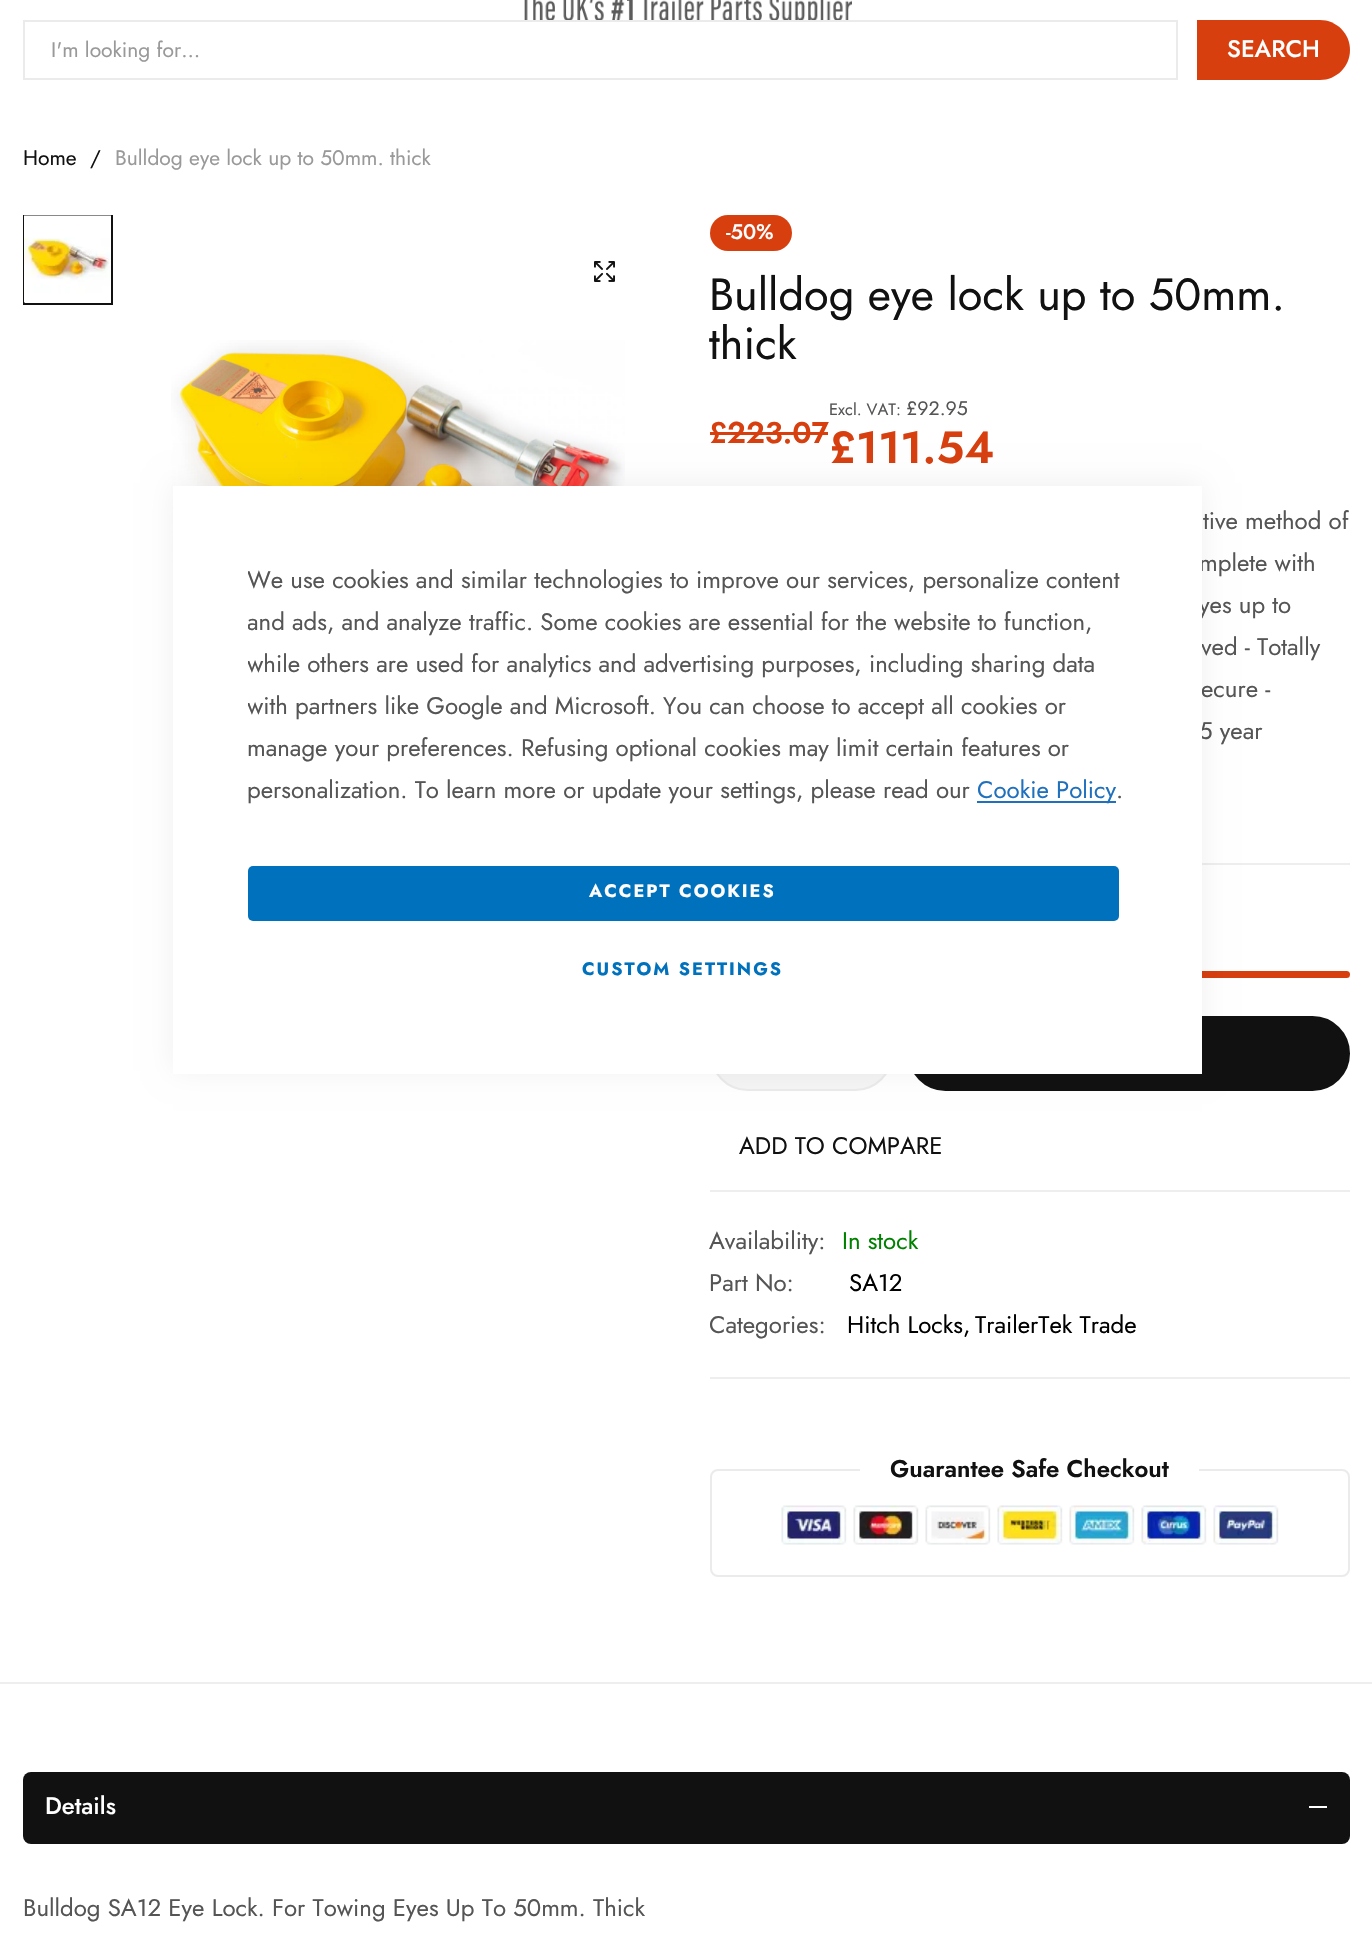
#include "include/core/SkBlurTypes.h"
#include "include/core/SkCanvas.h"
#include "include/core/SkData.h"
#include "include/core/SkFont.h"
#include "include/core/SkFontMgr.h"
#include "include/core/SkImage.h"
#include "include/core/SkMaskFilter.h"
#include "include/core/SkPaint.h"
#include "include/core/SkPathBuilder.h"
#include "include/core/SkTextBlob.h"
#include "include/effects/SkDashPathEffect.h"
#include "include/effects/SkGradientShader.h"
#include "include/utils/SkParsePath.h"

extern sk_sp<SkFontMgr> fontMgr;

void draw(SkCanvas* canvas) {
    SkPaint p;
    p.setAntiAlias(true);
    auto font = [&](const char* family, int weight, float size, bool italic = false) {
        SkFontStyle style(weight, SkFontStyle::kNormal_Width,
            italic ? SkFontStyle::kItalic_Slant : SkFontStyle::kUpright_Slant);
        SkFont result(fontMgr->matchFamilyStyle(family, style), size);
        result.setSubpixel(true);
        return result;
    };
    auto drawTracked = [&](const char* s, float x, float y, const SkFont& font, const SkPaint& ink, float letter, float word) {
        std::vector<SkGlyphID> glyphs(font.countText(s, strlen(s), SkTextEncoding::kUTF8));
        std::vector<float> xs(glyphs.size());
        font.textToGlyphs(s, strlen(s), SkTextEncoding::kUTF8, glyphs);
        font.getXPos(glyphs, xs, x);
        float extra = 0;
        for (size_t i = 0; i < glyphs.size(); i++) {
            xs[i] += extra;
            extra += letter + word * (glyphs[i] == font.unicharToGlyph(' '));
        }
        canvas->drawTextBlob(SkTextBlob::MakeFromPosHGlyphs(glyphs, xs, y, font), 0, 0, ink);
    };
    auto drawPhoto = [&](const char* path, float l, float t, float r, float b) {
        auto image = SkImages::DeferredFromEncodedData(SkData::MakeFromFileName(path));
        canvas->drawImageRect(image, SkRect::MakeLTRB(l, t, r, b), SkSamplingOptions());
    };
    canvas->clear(0xFFFFFFFF);
    drawPhoto("media/1.png", 524, 0, 852, 20);
    p.setStyle(SkPaint::kStroke_Style);
    p.setStrokeWidth(2);
    p.setColor(0xFFEBEBEB);
    canvas->drawRect(SkRect::MakeLTRB(24, 21, 1177, 79), p);
    auto font1 = font("Jost", 400, 21);
    p.setStyle(SkPaint::kFill_Style);
    p.setColor(0xFF999999);
    canvas->drawString("I'm looking for…", 51, 57, font1, p);
    p.setColor(0xFFD73F0F);
    canvas->drawPath(SkPathBuilder().moveTo(1197, 20).lineTo(1320, 20).cubicTo(1336.5f, 20, 1350, 33.5f, 1350, 50).cubicTo(1350, 66.5f, 1336.5f, 80, 1320, 80).lineTo(1197, 80).close().detach(), p);
    auto font2 = font("Jost", 500, 24);
    p.setColor(0xFFFFFFFF);
    canvas->drawString("SEARCH", 1227, 57, font2, p);
    p.setColor(0xFF111111);
    canvas->drawString("Home", 23, 165, font1, p);
    canvas->drawString("/", 90, 165, font1, p);
    p.setColor(0xFF999999);
    canvas->drawString("Bulldog eye lock up to 50mm. thick", 115, 165, font1, p);
    p.setStyle(SkPaint::kStroke_Style);
    p.setColor(0xFF111111);
    canvas->drawRect(SkRect::MakeLTRB(24, 216, 112, 304), p);
    drawPhoto("media/2.png", 24, 215, 111, 303);
    drawPhoto("media/3.png", 594, 261, 615, 282);
    drawPhoto("media/4.png", 171, 340, 625, 566);
    p.setStyle(SkPaint::kFill_Style);
    p.setColor(0xFFD73F0F);
    canvas->drawRoundRect(SkRect::MakeLTRB(710, 215, 792, 251), 18, 18, p);
    auto font3 = font("Jost", 500, 21);
    p.setColor(0xFFFFFFFF);
    canvas->drawString("-50%", 726, 239, font3, p);
    auto font4 = font("Jost", 400, 45);
    p.setColor(0xFF111111);
    canvas->drawString("Bulldog eye lock up to 50mm.", 709, 310, font4, p);
    canvas->drawString("thick", 709, 359, font4, p);
    auto font5 = font("Jost", 600, 30);
    p.setColor(0xFFD73F0F);
    canvas->drawString("£223.07", 709, 443, font5, p);
    canvas->drawRect(SkRect::MakeLTRB(710, 432, 828, 435), p);
    auto font6 = font("Jost", 400, 16.5f);
    p.setColor(0xFF555555);
    canvas->drawString("Excl. VAT:", 829, 415, font6, p);
    auto font7 = font("Jost", 400, 19.5f);
    canvas->drawString("£92.95", 906, 415, font7, p);
    auto font8 = font("Jost", 600, 45);
    p.setColor(0xFFD73F0F);
    canvas->drawString("£111.54", 829, 463, font8, p);
    auto font9 = font("Jost", 400, 24);
    p.setColor(0xFF555555);
    {
        const struct { const char* s; float x, y; } items[] = {
            {"tive method of", 1203, 529},
            {"mplete with", 1199, 571},
            {"yes up to", 1199, 613},
            {"ved - Totally", 1201, 655},
            {"ecure -", 1201, 697},
            {"5 year", 1199, 739},
        };
        for (auto [s, x, y] : items) {
            canvas->drawString(s, x, y, font9, p);
        }
    }
    p.setColor(0xFFEEEEEE);
    canvas->drawRect(SkRect::MakeLTRB(1202, 863, 1350, 865), p);
    p.setColor(0xFFD73F0F);
    canvas->drawRoundRect(SkRect::MakeLTRB(710, 971, 1350, 978), 3.5f, 3.5f, p);
    p.setColor(0xFFF5F5F5);
    canvas->drawRoundRect(SkRect::MakeLTRB(711, 1017, 892, 1090), 36.5f, 36.5f, p);
    p.setStyle(SkPaint::kStroke_Style);
    p.setColor(0xFFEBEBEB);
    canvas->drawRoundRect(SkRect::MakeLTRB(711, 1017, 892, 1090), 36.5f, 36.5f, p);
    p.setStyle(SkPaint::kFill_Style);
    p.setColor(0xFF111111);
    canvas->drawRoundRect(SkRect::MakeLTRB(909, 1017, 1349, 1090), 36.5f, 36.5f, p);
    p.setStyle(SkPaint::kStroke_Style);
    canvas->drawRoundRect(SkRect::MakeLTRB(909, 1017, 1349, 1090), 36.5f, 36.5f, p);
    p.setStyle(SkPaint::kFill_Style);
    p.setColor(0xFFEEEEEE);
    canvas->drawRect(SkRect::MakeLTRB(710, 1190, 1350, 1192), p);
    p.setColor(0xFF111111);
    canvas->drawString("ADD TO COMPARE", 739, 1154, font9, p);
    p.setColor(0xFF555555);
    canvas->drawString("Availability:", 709, 1249, font9, p);
    p.setColor(0xFF008000);
    canvas->drawString("In stock", 842, 1249, font9, p);
    p.setColor(0xFF555555);
    canvas->drawString("Part No:", 709, 1291, font9, p);
    p.setColor(0xFF000000);
    canvas->drawString("SA12", 849, 1291, font9, p);
    p.setColor(0xFF555555);
    canvas->drawString("Categories:", 709, 1333, font9, p);
    p.setColor(0xFF000000);
    canvas->drawString("Hitch Locks,", 847, 1333, font9, p);
    canvas->drawString("TrailerTek Trade", 975, 1333, font9, p);
    p.setColor(0xFFEEEEEE);
    canvas->drawRect(SkRect::MakeLTRB(710, 1377, 1350, 1379), p);
    p.setStyle(SkPaint::kStroke_Style);
    p.setColor(0xFFEBEBEB);
    canvas->drawRoundRect(SkRect::MakeLTRB(711, 1470, 1349, 1576), 7, 7, p);
    p.setStyle(SkPaint::kFill_Style);
    p.setColor(0xFFFFFFFF);
    canvas->drawRect(SkRect::MakeLTRB(860, 1469, 1199, 1471), p);
    auto font10 = font("Jost", 600, 24);
    p.setColor(0xFF111111);
    canvas->drawString("Guarantee Safe Checkout", 890, 1477, font10, p);
    drawPhoto("media/5.png", 781, 1505, 1279, 1545);
    p.setColor(0xFFEEEEEE);
    canvas->drawRect(SkRect::MakeLTRB(0, 1682, 1372, 1684), p);
    p.setColor(0xFF111111);
    canvas->drawRoundRect(SkRect::MakeLTRB(23, 1772, 1350, 1844), 8, 8, p);
    p.setColor(0xFFFFFFFF);
    canvas->drawString("Details", 45, 1814, font2, p);
    canvas->drawRect(SkRect::MakeLTRB(1309, 1806, 1327, 1808), p);
    p.setColor(0xFF555555);
    canvas->drawString("Bulldog SA12 Eye Lock. For Towing Eyes Up To 50mm. Thick", 23, 1916, font9, p);
    p.setColor(0x0F000000);
    p.setMaskFilter(SkMaskFilter::MakeBlur(kNormal_SkBlurStyle, 13.5f));
    canvas->drawRect(SkRect::MakeLTRB(173, 483, 1202, 1071), p);
    p.setMaskFilter(nullptr);
    p.setColor(0xFFFFFFFF);
    canvas->drawRect(SkRect::MakeLTRB(173, 486, 1202, 1074), p);
    canvas->save();
    canvas->clipRect(SkRect::MakeLTRB(248, 561, 1127, 813));
    p.setColor(0xFF555555);
    {
        const struct { const char* s; float x, y; } items[] = {
            {"We use cookies and similar technologies to improve our services, personalize content", 247, 588},
            {"and ads, and analyze traffic. Some cookies are essential for the website to function,", 247, 630},
            {"while others are used for analytics and advertising purposes, including sharing data", 247, 672},
            {"with partners like Google and Microsoft.", 247, 714},
        };
        for (auto [s, x, y] : items) {
            canvas->drawString(s, x, y, font9, p);
        }
    }
    canvas->restore();
    {
        const struct { const char* s; float x, y; } items[] = {
            {"You can choose to accept all cookies or", 663, 714},
            {"manage your preferences. Refusing optional cookies may limit certain features or", 247, 756},
            {"personalization. To learn more or update your settings, please read our", 247, 798},
        };
        for (auto [s, x, y] : items) {
            canvas->drawString(s, x, y, font9, p);
        }
    }
    p.setColor(0xFF1F70BD);
    canvas->drawRect(SkRect::MakeLTRB(977, 801, 1116, 803), p);
    canvas->drawString("Cookie Policy", 977, 798, font9, p);
    p.setColor(0xFF555555);
    canvas->drawString(".", 1116, 798, font9, p);
    p.setColor(0xFF0071BC);
    canvas->drawRoundRect(SkRect::MakeLTRB(248, 866, 1119, 921), 5, 5, p);
    auto font11 = font("Jost", 700, 18);
    p.setColor(0xFFFFFFFF);
    drawTracked("ACCEPT COOKIES", 589, 897, font11, p, 2, 0);
    p.setColor(0xFF0071BC);
    drawTracked("CUSTOM SETTINGS", 582, 975, font11, p, 2, 0);
}
